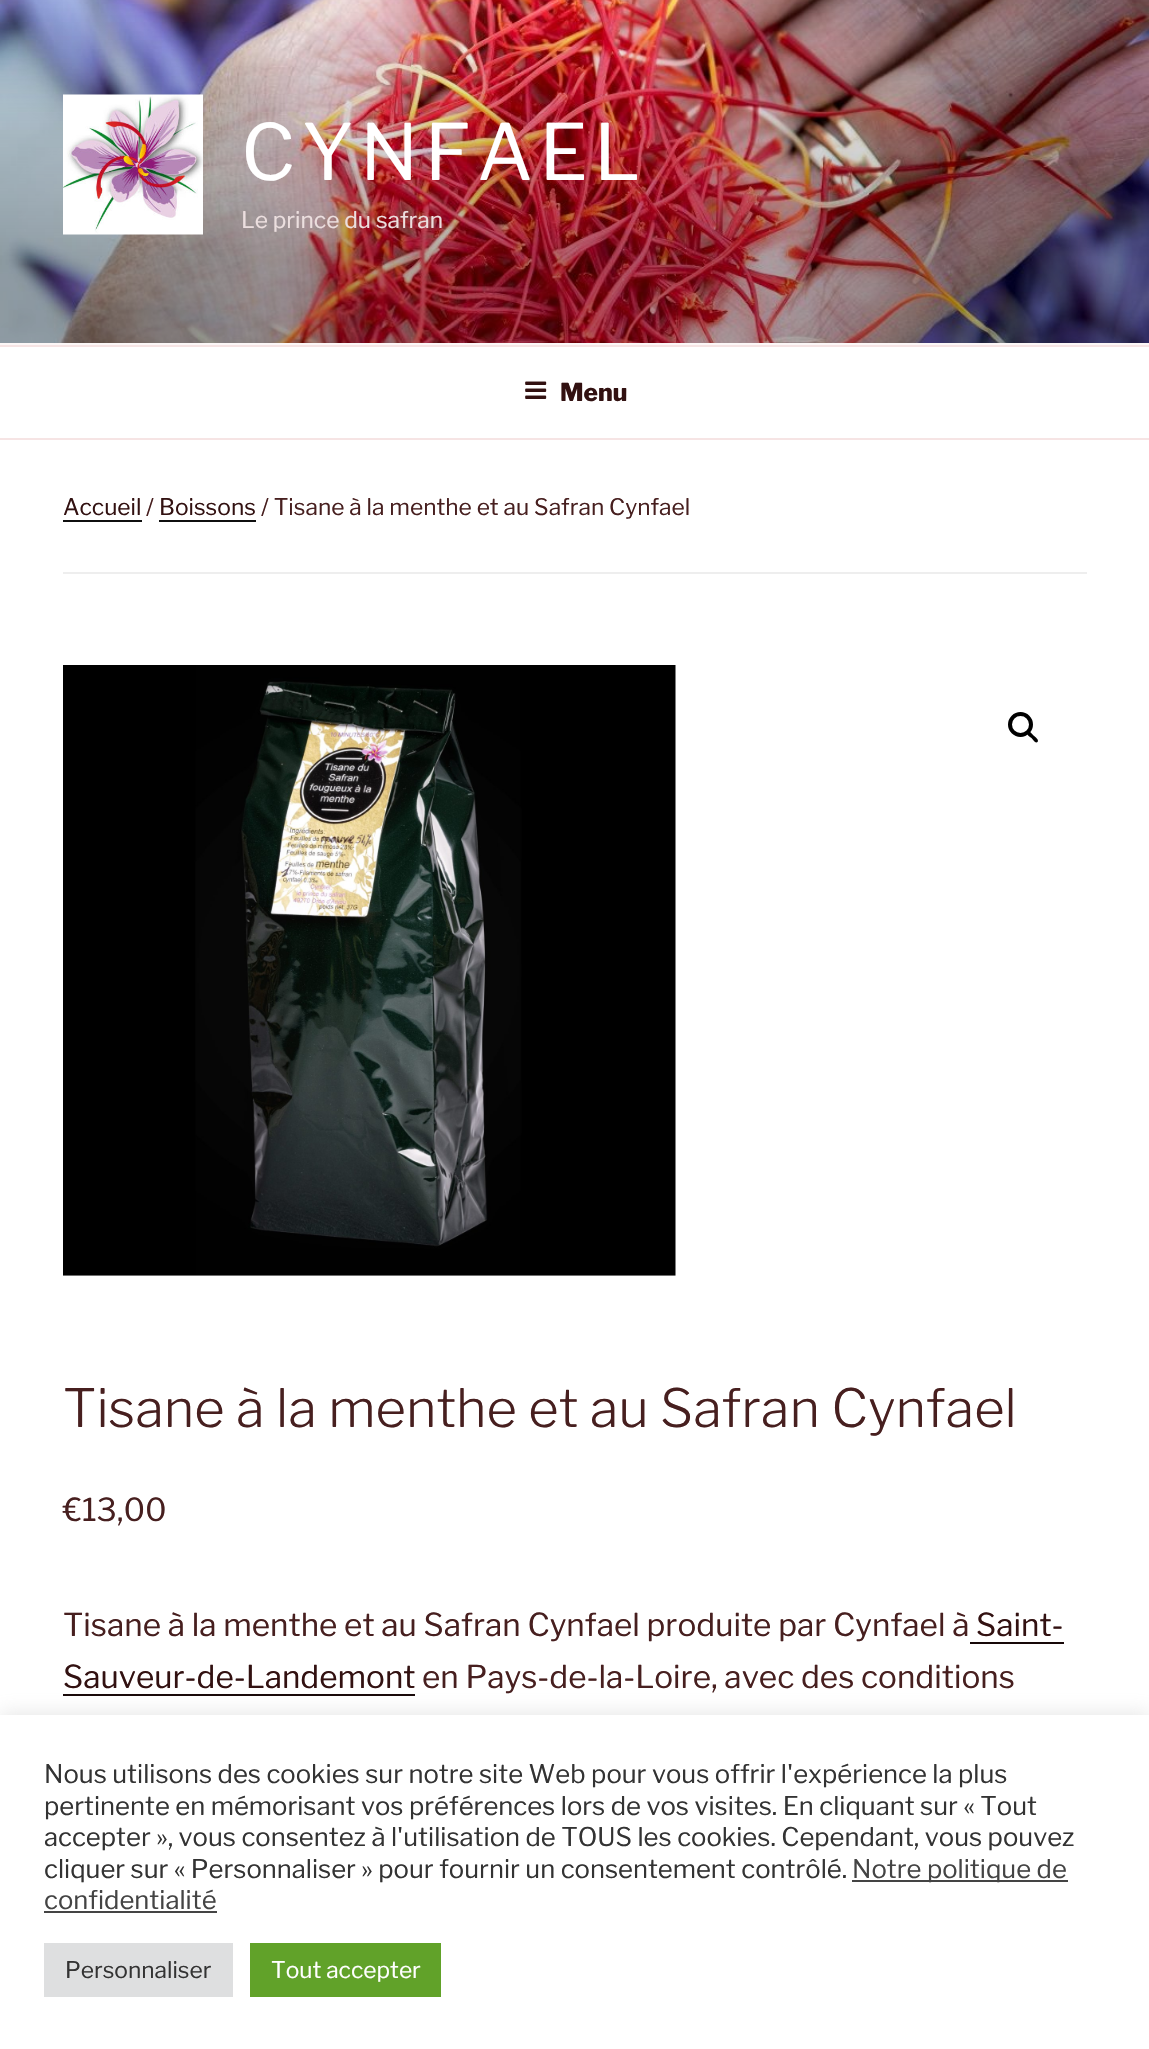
#include "include/core/SkBlurTypes.h"
#include "include/core/SkCanvas.h"
#include "include/core/SkData.h"
#include "include/core/SkFont.h"
#include "include/core/SkFontMgr.h"
#include "include/core/SkImage.h"
#include "include/core/SkMaskFilter.h"
#include "include/core/SkPaint.h"
#include "include/core/SkPathBuilder.h"
#include "include/core/SkTextBlob.h"
#include "include/effects/SkDashPathEffect.h"
#include "include/effects/SkGradientShader.h"
#include "include/utils/SkParsePath.h"

extern sk_sp<SkFontMgr> fontMgr;

void draw(SkCanvas* canvas) {
    SkPaint p;
    p.setAntiAlias(true);
    auto font = [&](const char* family, int weight, float size, bool italic = false) {
        SkFontStyle style(weight, SkFontStyle::kNormal_Width,
            italic ? SkFontStyle::kItalic_Slant : SkFontStyle::kUpright_Slant);
        SkFont result(fontMgr->matchFamilyStyle(family, style), size);
        result.setSubpixel(true);
        return result;
    };
    auto drawTracked = [&](const char* s, float x, float y, const SkFont& font, const SkPaint& ink, float letter, float word) {
        std::vector<SkGlyphID> glyphs(font.countText(s, strlen(s), SkTextEncoding::kUTF8));
        std::vector<float> xs(glyphs.size());
        font.textToGlyphs(s, strlen(s), SkTextEncoding::kUTF8, glyphs);
        font.getXPos(glyphs, xs, x);
        float extra = 0;
        for (size_t i = 0; i < glyphs.size(); i++) {
            xs[i] += extra;
            extra += letter + word * (glyphs[i] == font.unicharToGlyph(' '));
        }
        canvas->drawTextBlob(SkTextBlob::MakeFromPosHGlyphs(glyphs, xs, y, font), 0, 0, ink);
    };
    auto drawPhoto = [&](const char* path, float l, float t, float r, float b) {
        auto image = SkImages::DeferredFromEncodedData(SkData::MakeFromFileName(path));
        canvas->drawImageRect(image, SkRect::MakeLTRB(l, t, r, b), SkSamplingOptions());
    };
    canvas->clear(0xFFFFFFFF);
    p.setColor(0xFFFCF7F7);
    canvas->drawRect(SkRect::MakeLTRB(0, 343, 1149, 345), p);
    drawPhoto("media/1.png", 0, 0, 1149, 343);
    drawPhoto("media/2.png", 63, 94, 203, 235);
    auto font1 = font("Libre Franklin", 100, 77);
    p.setColor(0xFFFFFFFF);
    drawTracked("CYNFAEL", 241, 180, font1, p, 6.25f, 0);
    auto font2 = font("Libre Franklin", 100, 22.75f);
    p.setColor(0xFFECDFDF);
    canvas->drawString("Le prince du safran", 241, 228, font2, p);
    p.setColor(0xFFF6E4E4);
    canvas->drawRect(SkRect::MakeLTRB(0, 345, 1149, 347), p);
    canvas->drawRect(SkRect::MakeLTRB(0, 438, 1149, 440), p);
    drawPhoto("media/3.png", 525, 381, 547, 399);
    auto font3 = font("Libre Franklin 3", 100, 24.5f);
    p.setColor(0xFF321111);
    canvas->drawString("Menu", 560, 401, font3, p);
    p.setColor(0xFFEEEEEE);
    canvas->drawRect(SkRect::MakeLTRB(63, 572, 1087, 574), p);
    p.setColor(0xFF321111);
    canvas->drawString("Accueil", 63, 515, font2, p);
    p.setColor(0xFF0F0F0F);
    canvas->drawPath(SkPathBuilder().moveTo(63, 520).lineTo(63, 522).lineTo(142, 522).lineTo(142, 494).lineTo(142, 520).close().detach(), p);
    p.setColor(0xFF471F1F);
    canvas->drawString("/", 146, 515, font2, p);
    p.setColor(0xFF321111);
    canvas->drawString("Boissons", 159, 515, font2, p);
    p.setColor(0xFF0F0F0F);
    canvas->drawPath(SkPathBuilder().moveTo(159, 494).lineTo(159, 522).lineTo(256, 522).lineTo(256, 494).lineTo(256, 520).lineTo(159, 520).close().detach(), p);
    p.setColor(0xFF471F1F);
    canvas->drawString("/ Tisane à la menthe et au Safran Cynfael", 261, 515, font2, p);
    drawPhoto("media/4.png", 63, 665, 676, 1276);
    p.setStyle(SkPaint::kStroke_Style);
    p.setStrokeWidth(4);
    p.setColor(0xFF000000);
    canvas->drawCircle(1020.5f, 724.5f, 10.5f, p);
    p.setStyle(SkPaint::kFill_Style);
    canvas->drawPath(SkPathBuilder().moveTo(1027.5f, 732).cubicTo(1029.5f, 730, 1032.5f, 734.5f, 1033.5f, 735.5f).cubicTo(1035, 736.5f, 1039.5f, 740, 1037.5f, 742).cubicTo(1035.5f, 744, 1032.5f, 739, 1031.5f, 738).cubicTo(1030, 737, 1025.5f, 734, 1027.5f, 732).close().detach(), p);
    auto font4 = font("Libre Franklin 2", 100, 52.5f);
    p.setColor(0xFF471F1F);
    canvas->drawString("Tisane à la menthe et au Safran Cynfael", 63, 1427, font4, p);
    auto font5 = font("Libre Franklin", 100, 31.5f);
    canvas->drawString("€13,00", 63, 1521, font5, p);
    canvas->drawString("Tisane à la menthe et au Safran Cynfael produite par Cynfael à", 63, 1636, font5, p);
    p.setColor(0xFF321111);
    canvas->drawString("Saint-", 976, 1636, font5, p);
    p.setColor(0xFF170808);
    canvas->drawRect(SkRect::MakeLTRB(970, 1642, 1064, 1644), p);
    p.setColor(0xFF321111);
    canvas->drawString("Sauveur-de-Landemont", 63, 1688, font5, p);
    p.setColor(0xFF170808);
    canvas->drawRect(SkRect::MakeLTRB(63, 1694, 415, 1696), p);
    p.setColor(0xFF471F1F);
    canvas->drawString("en Pays-de-la-Loire, avec des conditions", 422, 1688, font5, p);
    p.setColor(0x4DACABAB);
    p.setMaskFilter(SkMaskFilter::MakeBlur(kNormal_SkBlurStyle, 9));
    canvas->drawRect(SkRect::MakeLTRB(0, 1713, 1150, 2048), p);
    p.setMaskFilter(nullptr);
    p.setColor(0xFFFFFFFF);
    canvas->drawRect(SkRect::MakeLTRB(0, 1715, 1149, 2049), p);
    auto font6 = font("Libre Franklin", 100, 25.65f);
    p.setColor(0xFF333333);
    {
        const struct { const char* s; float x, y; } items[] = {
            {"Nous utilisons des cookies sur notre site Web pour vous offrir l'expérience la plus", 44, 1783},
            {"pertinente en mémorisant vos préférences lors de vos visites. En cliquant sur « Tout", 44, 1815},
            {"accepter », vous consentez à l'utilisation de TOUS les cookies. Cependant, vous pouvez", 44, 1846},
            {"cliquer sur « Personnaliser » pour fournir un consentement contrôlé.", 44, 1878},
        };
        for (auto [s, x, y] : items) {
            canvas->drawString(s, x, y, font6, p);
        }
    }
    p.setColor(0xFF444444);
    canvas->drawRect(SkRect::MakeLTRB(852, 1880, 1068, 1882), p);
    canvas->drawString("Notre politique de", 852, 1878, font6, p);
    canvas->drawString("confidentialité", 44, 1909, font6, p);
    canvas->drawRect(SkRect::MakeLTRB(44, 1911, 217, 1913), p);
    p.setColor(0xFFDEDFE0);
    canvas->drawRect(SkRect::MakeLTRB(44, 1943, 233, 1997), p);
    p.setColor(0xFF333333);
    canvas->drawString("Personnaliser", 65, 1978, font2, p);
    p.setColor(0xFF61A229);
    canvas->drawRect(SkRect::MakeLTRB(250, 1943, 441, 1997), p);
    p.setColor(0xFFFFFFFF);
    canvas->drawString("Tout accepter", 271, 1978, font2, p);
}
